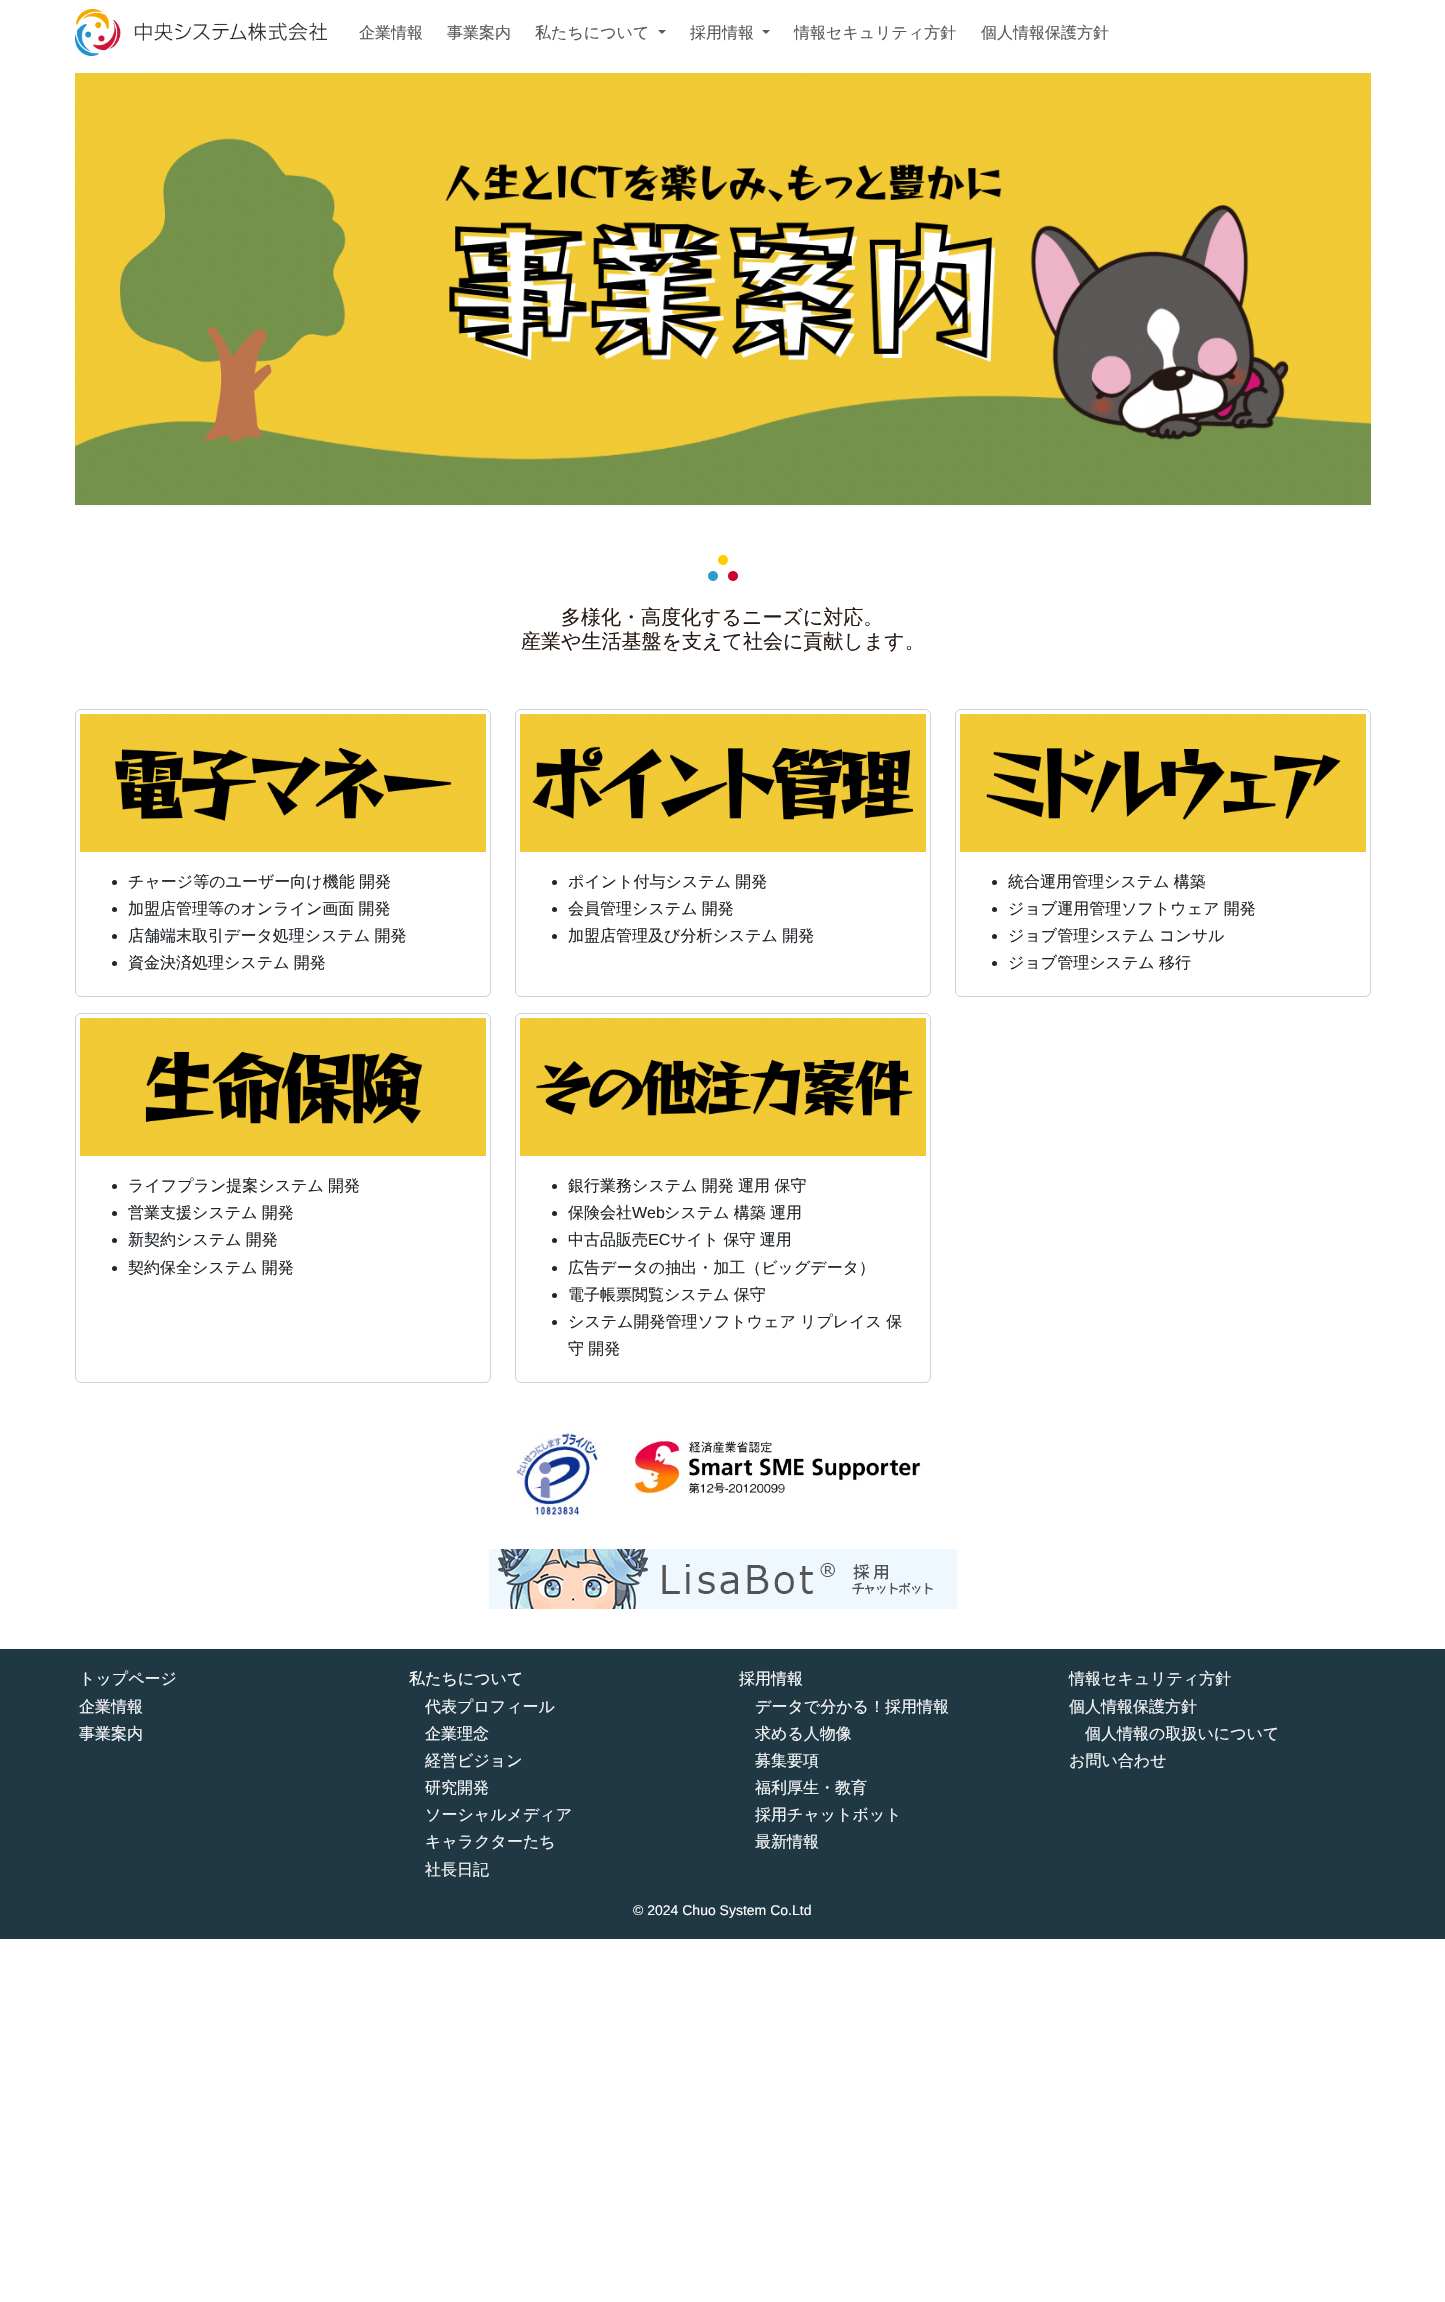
#include "include/core/SkBlurTypes.h"
#include "include/core/SkCanvas.h"
#include "include/core/SkData.h"
#include "include/core/SkFont.h"
#include "include/core/SkFontMgr.h"
#include "include/core/SkImage.h"
#include "include/core/SkMaskFilter.h"
#include "include/core/SkPaint.h"
#include "include/core/SkPathBuilder.h"
#include "include/core/SkTextBlob.h"
#include "include/effects/SkDashPathEffect.h"
#include "include/effects/SkGradientShader.h"
#include "include/utils/SkParsePath.h"

extern sk_sp<SkFontMgr> fontMgr;

void draw(SkCanvas* canvas) {
    SkPaint p;
    p.setAntiAlias(true);
    auto font = [&](const char* family, int weight, float size, bool italic = false) {
        SkFontStyle style(weight, SkFontStyle::kNormal_Width,
            italic ? SkFontStyle::kItalic_Slant : SkFontStyle::kUpright_Slant);
        SkFont result(fontMgr->matchFamilyStyle(family, style), size);
        result.setSubpixel(true);
        return result;
    };
    auto drawTracked = [&](const char* s, float x, float y, const SkFont& font, const SkPaint& ink, float letter, float word) {
        std::vector<SkGlyphID> glyphs(font.countText(s, strlen(s), SkTextEncoding::kUTF8));
        std::vector<float> xs(glyphs.size());
        font.textToGlyphs(s, strlen(s), SkTextEncoding::kUTF8, glyphs);
        font.getXPos(glyphs, xs, x);
        float extra = 0;
        for (size_t i = 0; i < glyphs.size(); i++) {
            xs[i] += extra;
            extra += letter + word * (glyphs[i] == font.unicharToGlyph(' '));
        }
        canvas->drawTextBlob(SkTextBlob::MakeFromPosHGlyphs(glyphs, xs, y, font), 0, 0, ink);
    };
    auto drawPhoto = [&](const char* path, float l, float t, float r, float b) {
        auto image = SkImages::DeferredFromEncodedData(SkData::MakeFromFileName(path));
        canvas->drawImageRect(image, SkRect::MakeLTRB(l, t, r, b), SkSamplingOptions());
    };
    canvas->clear(0xFFFFFFFF);
    drawPhoto("media/1.png", 75, 9, 327, 56);
    auto font1 = font("WenQuanYi Zen Hei", 500, 16);
    p.setColor(0xFF595959);
    {
        const struct { const char* s; float x, y; } items[] = {
            {"企業情報", 359, 38},
            {"事業案内", 447, 38},
            {"私たちについて", 535, 38},
        };
        for (auto [s, x, y] : items) {
            canvas->drawString(s, x, y, font1, p);
        }
    }
    canvas->drawPath(SkPathBuilder().moveTo(658, 30).lineTo(666, 30).lineTo(662, 34).close().detach(), p);
    canvas->drawString("採用情報", 690, 38, font1, p);
    canvas->drawPath(SkPathBuilder().moveTo(762, 30).lineTo(770, 30).lineTo(766, 34).close().detach(), p);
    canvas->drawString("情報セキュリティ方針", 794, 38, font1, p);
    canvas->drawString("個人情報保護方針", 981, 38, font1, p);
    drawPhoto("media/2.png", 75, 73, 1371, 505);
    drawPhoto("media/3.png", 708, 555, 738, 581);
    auto font2 = font("WenQuanYi Zen Hei", 500, 20);
    p.setColor(0xFF281A14);
    canvas->drawString("多様化・高度化するニーズに対応。", 561, 624, font2, p);
    canvas->drawString("産業や生活基盤を支えて社会に貢献します。", 521, 648, font2, p);
    p.setStyle(SkPaint::kStroke_Style);
    p.setStrokeWidth(1);
    p.setColor(0xFFD2D2D2);
    canvas->drawRoundRect(SkRect::MakeLTRB(75.5f, 709.5f, 490.5f, 996.5f), 5.5f, 5.5f, p);
    drawPhoto("media/4.png", 80, 714, 486, 852);
    p.setStyle(SkPaint::kFill_Style);
    p.setColor(0xFF212529);
    canvas->drawCircle(114.5f, 882.5f, 2.5f, p);
    drawTracked("チャージ等のユーザー向け機能 開発", 128, 887, font1, p, 0, -0.5f);
    canvas->drawCircle(114.5f, 909.5f, 2.5f, p);
    drawTracked("加盟店管理等のオンライン画面 開発", 128, 914, font1, p, 0, -0.5f);
    canvas->drawCircle(114.5f, 936.5f, 2.5f, p);
    drawTracked("店舗端末取引データ処理システム 開発", 128, 941, font1, p, 0, -0.5f);
    canvas->drawCircle(114.5f, 963.5f, 2.5f, p);
    drawTracked("資金決済処理システム 開発", 128, 968, font1, p, 0, -0.5f);
    p.setStyle(SkPaint::kStroke_Style);
    p.setColor(0xFFD2D2D2);
    canvas->drawRoundRect(SkRect::MakeLTRB(515.5f, 709.5f, 930.5f, 996.5f), 5.5f, 5.5f, p);
    drawPhoto("media/5.png", 520, 714, 926, 852);
    p.setStyle(SkPaint::kFill_Style);
    p.setColor(0xFF212529);
    canvas->drawCircle(554.5f, 882.5f, 2.5f, p);
    drawTracked("ポイント付与システム 開発", 568, 887, font1, p, 0, -0.5f);
    canvas->drawCircle(554.5f, 909.5f, 2.5f, p);
    drawTracked("会員管理システム 開発", 568, 914, font1, p, 0, -0.5f);
    canvas->drawCircle(554.5f, 936.5f, 2.5f, p);
    drawTracked("加盟店管理及び分析システム 開発", 568, 941, font1, p, 0, -0.5f);
    p.setStyle(SkPaint::kStroke_Style);
    p.setColor(0xFFD2D2D2);
    canvas->drawRoundRect(SkRect::MakeLTRB(955.5f, 709.5f, 1370.5f, 996.5f), 5.5f, 5.5f, p);
    drawPhoto("media/6.png", 960, 714, 1366, 852);
    p.setStyle(SkPaint::kFill_Style);
    p.setColor(0xFF212529);
    canvas->drawCircle(994.5f, 882.5f, 2.5f, p);
    drawTracked("統合運用管理システム 構築", 1008, 887, font1, p, 0, -0.5f);
    canvas->drawCircle(994.5f, 909.5f, 2.5f, p);
    drawTracked("ジョブ運用管理ソフトウェア 開発", 1008, 914, font1, p, 0, -0.5f);
    canvas->drawCircle(994.5f, 936.5f, 2.5f, p);
    drawTracked("ジョブ管理システム コンサル", 1008, 941, font1, p, 0, -0.5f);
    canvas->drawCircle(994.5f, 963.5f, 2.5f, p);
    drawTracked("ジョブ管理システム 移行", 1008, 968, font1, p, 0, -0.5f);
    p.setStyle(SkPaint::kStroke_Style);
    p.setColor(0xFFD2D2D2);
    canvas->drawRoundRect(SkRect::MakeLTRB(75.5f, 1013.5f, 490.5f, 1382.5f), 5.5f, 5.5f, p);
    drawPhoto("media/7.png", 80, 1018, 486, 1156);
    p.setStyle(SkPaint::kFill_Style);
    p.setColor(0xFF212529);
    canvas->drawCircle(114.5f, 1186.5f, 2.5f, p);
    drawTracked("ライフプラン提案システム 開発", 128, 1191, font1, p, 0, -0.5f);
    canvas->drawCircle(114.5f, 1213.5f, 2.5f, p);
    drawTracked("営業支援システム 開発", 128, 1218, font1, p, 0, -0.5f);
    canvas->drawCircle(114.5f, 1240.5f, 2.5f, p);
    drawTracked("新契約システム 開発", 128, 1245, font1, p, 0, -0.5f);
    canvas->drawCircle(114.5f, 1268.5f, 2.5f, p);
    drawTracked("契約保全システム 開発", 128, 1273, font1, p, 0, -0.5f);
    p.setStyle(SkPaint::kStroke_Style);
    p.setColor(0xFFD2D2D2);
    canvas->drawRoundRect(SkRect::MakeLTRB(515.5f, 1013.5f, 930.5f, 1382.5f), 5.5f, 5.5f, p);
    drawPhoto("media/8.png", 520, 1018, 926, 1156);
    p.setStyle(SkPaint::kFill_Style);
    p.setColor(0xFF212529);
    canvas->drawCircle(554.5f, 1186.5f, 2.5f, p);
    drawTracked("銀行業務システム 開発 運用 保守", 568, 1191, font1, p, 0, -0.5f);
    canvas->drawCircle(554.5f, 1213.5f, 2.5f, p);
    canvas->drawString("保険会社", 568, 1218, font1, p);
    auto font3 = font("Liberation Sans", 400, 16);
    canvas->drawString("Web", 632, 1218, font3, p);
    drawTracked("システム 構築 運用", 664, 1218, font1, p, 0, -0.5f);
    canvas->drawCircle(554.5f, 1240.5f, 2.5f, p);
    canvas->drawString("中古品販売", 568, 1245, font1, p);
    canvas->drawString("EC", 648, 1245, font3, p);
    drawTracked("サイト 保守 運用", 670, 1245, font1, p, 0, -0.5f);
    canvas->drawCircle(554.5f, 1268.5f, 2.5f, p);
    canvas->drawString("広告データの抽出・加工（ビッグデータ）", 568, 1273, font1, p);
    canvas->drawCircle(554.5f, 1295.5f, 2.5f, p);
    drawTracked("電子帳票閲覧システム 保守", 568, 1300, font1, p, 0, -0.5f);
    canvas->drawCircle(554.5f, 1322.5f, 2.5f, p);
    drawTracked("システム開発管理ソフトウェア リプレイス 保", 568, 1327, font1, p, 0, -0.5f);
    drawTracked("守 開発", 568, 1354, font1, p, 0, -0.5f);
    drawPhoto("media/9.png", 515, 1431, 598, 1517);
    drawPhoto("media/10.png", 632, 1437, 921, 1494);
    drawPhoto("media/11.png", 489, 1549, 957, 1609);
    p.setColor(0xFF203744);
    canvas->drawRect(SkRect::MakeLTRB(0, 1649, 1445, 1939), p);
    p.setColor(0xFFF8F9FA);
    {
        const struct { const char* s; float x, y; } items[] = {
            {"トップページ", 79, 1684},
            {"企業情報", 79, 1712},
            {"事業案内", 79, 1739},
        };
        for (auto [s, x, y] : items) {
            canvas->drawString(s, x, y, font1, p);
        }
    }
    p.setColor(0xFFFFFFFF);
    canvas->drawString("私たちについて", 409, 1684, font1, p);
    p.setColor(0xFFF8F9FA);
    {
        const struct { const char* s; float x, y; } items[] = {
            {"代表プロフィール", 425, 1712},
            {"企業理念", 425, 1739},
            {"経営ビジョン", 425, 1766},
            {"研究開発", 425, 1793},
            {"ソーシャルメディア", 425, 1820},
            {"キャラクターたち", 425, 1847},
            {"社長日記", 425, 1875},
        };
        for (auto [s, x, y] : items) {
            canvas->drawString(s, x, y, font1, p);
        }
    }
    p.setColor(0xFFFFFFFF);
    canvas->drawString("採用情報", 739, 1684, font1, p);
    p.setColor(0xFFF8F9FA);
    {
        const struct { const char* s; float x, y; } items[] = {
            {"データで分かる！採用情報", 755, 1712},
            {"求める人物像", 755, 1739},
            {"募集要項", 755, 1766},
            {"福利厚生・教育", 755, 1793},
            {"採用チャットボット", 755, 1820},
            {"最新情報", 755, 1847},
            {"情報セキュリティ方針", 1069, 1684},
            {"個人情報保護方針", 1069, 1712},
            {"個人情報の取扱いについて", 1085, 1739},
            {"お問い合わせ", 1069, 1766},
        };
        for (auto [s, x, y] : items) {
            canvas->drawString(s, x, y, font1, p);
        }
    }
    auto font4 = font("Liberation Sans", 400, 14);
    p.setColor(0xFFFFFFFF);
    canvas->drawString("© 2024 Chuo System Co.Ltd", 633, 1915, font4, p);
}
